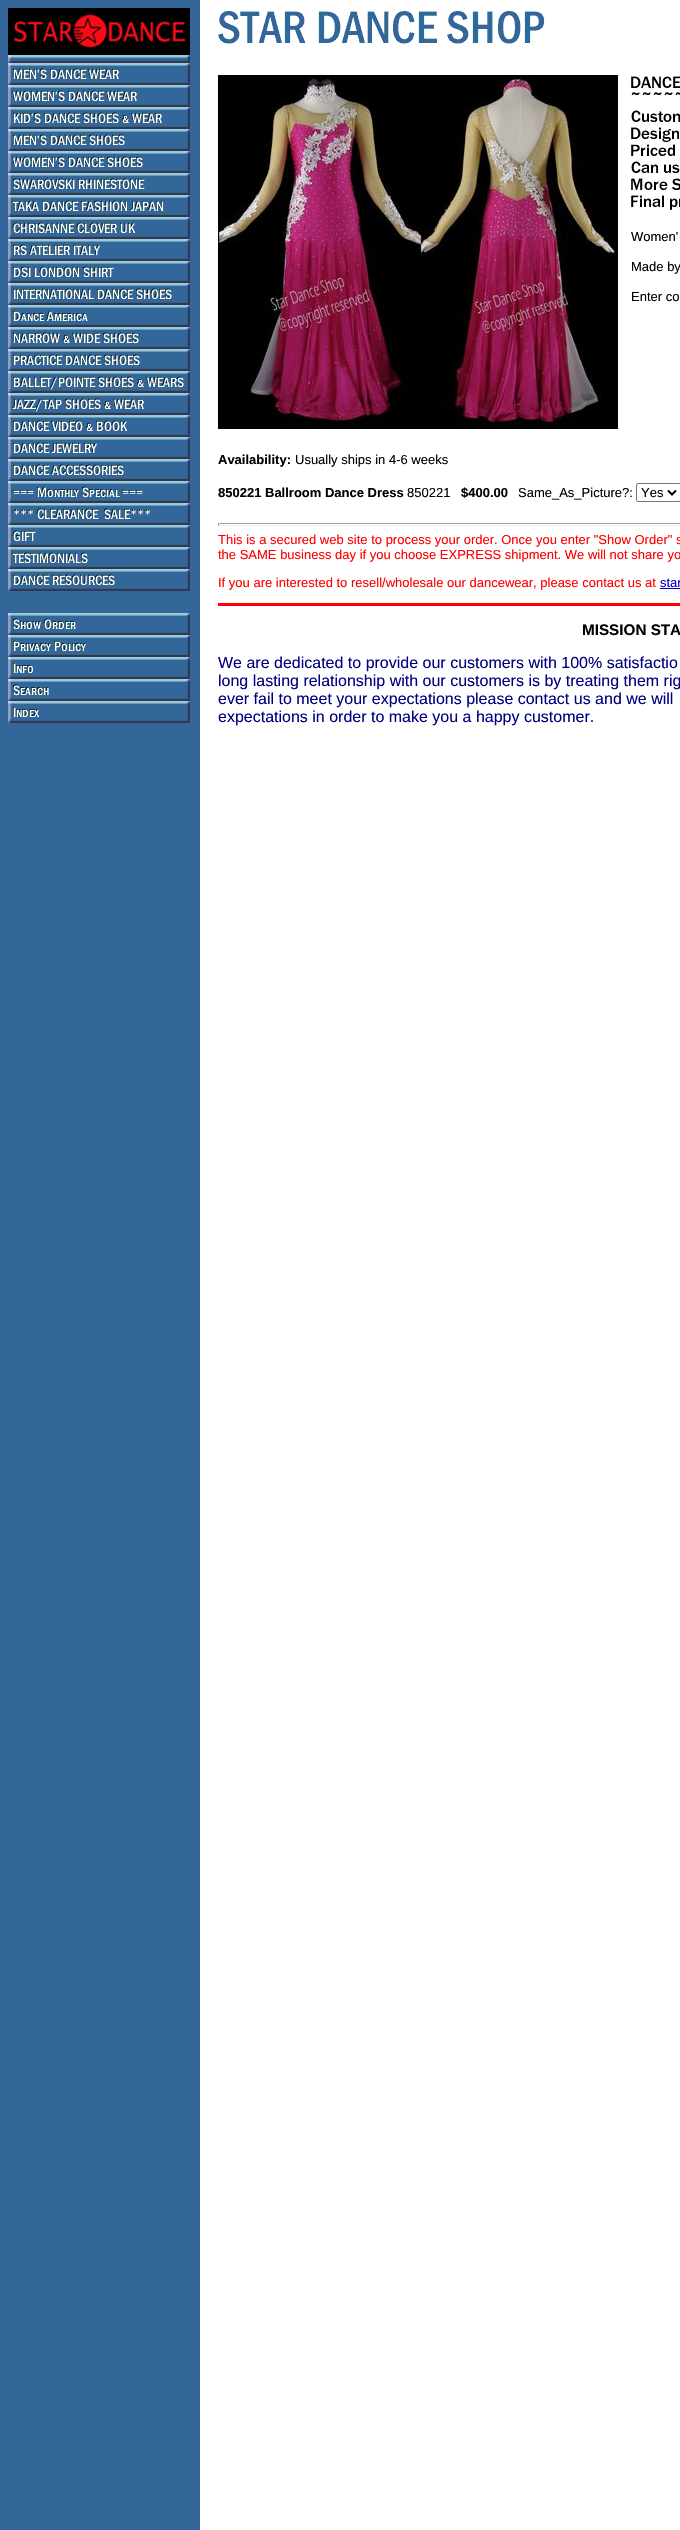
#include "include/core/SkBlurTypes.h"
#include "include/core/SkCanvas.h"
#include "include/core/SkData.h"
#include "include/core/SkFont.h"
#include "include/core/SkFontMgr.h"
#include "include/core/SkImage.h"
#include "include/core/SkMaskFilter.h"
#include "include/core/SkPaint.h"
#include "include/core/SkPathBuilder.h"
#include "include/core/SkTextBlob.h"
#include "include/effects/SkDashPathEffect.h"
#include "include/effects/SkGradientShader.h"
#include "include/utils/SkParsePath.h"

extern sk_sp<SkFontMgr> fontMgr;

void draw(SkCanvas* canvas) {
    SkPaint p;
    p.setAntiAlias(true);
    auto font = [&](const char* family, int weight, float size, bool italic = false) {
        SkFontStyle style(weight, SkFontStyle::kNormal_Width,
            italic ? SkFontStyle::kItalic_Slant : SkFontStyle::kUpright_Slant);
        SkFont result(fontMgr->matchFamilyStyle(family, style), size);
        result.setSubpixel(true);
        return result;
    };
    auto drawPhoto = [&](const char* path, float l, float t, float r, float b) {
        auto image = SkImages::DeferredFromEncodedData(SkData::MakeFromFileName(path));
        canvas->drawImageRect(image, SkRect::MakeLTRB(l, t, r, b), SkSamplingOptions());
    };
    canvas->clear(0xFFFFFFFF);
    p.setColor(0xFF336699);
    canvas->drawRect(SkRect::MakeLTRB(0, 0, 200, 2530), p);
    drawPhoto("media/1.png", 8, 8, 190, 723);
    drawPhoto("media/2.png", 218, 11, 545, 44);
    drawPhoto("media/3.png", 218, 75, 618, 429);
    drawPhoto("media/4.png", 631, 76, 680, 210);
    auto font1 = font("Liberation Sans", 400, 13);
    p.setColor(0xFF000000);
    {
        const struct { const char* s; float x, y; } items[] = {
            {"Women'", 631, 241},
            {"Made by", 631, 271},
            {"Enter co", 631, 301},
        };
        for (auto [s, x, y] : items) {
            canvas->drawString(s, x, y, font1, p);
        }
    }
    auto font2 = font("Liberation Sans", 700, 13);
    canvas->drawString("Availability:", 218, 464, font2, p);
    canvas->drawString("Usually ships in 4-6 weeks", 295, 464, font1, p);
    canvas->drawString("850221 Ballroom Dance Dress", 218, 497, font2, p);
    canvas->drawString("850221", 407, 497, font1, p);
    canvas->drawString("$400.00", 461, 497, font2, p);
    canvas->drawString("Same_As_Picture?:", 518, 497, font1, p);
    p.setStyle(SkPaint::kStroke_Style);
    p.setStrokeWidth(1);
    p.setColor(0xFF767676);
    canvas->drawRoundRect(SkRect::MakeLTRB(636.5f, 483.5f, 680.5f, 501.5f), 1.5f, 1.5f, p);
    p.setStrokeWidth(2);
    p.setColor(0xFF000000);
    canvas->drawPath(SkPathBuilder().moveTo(668, 490.5f).lineTo(672, 494.5f).lineTo(676, 490.5f).detach(), p);
    p.setStyle(SkPaint::kFill_Style);
    canvas->drawString("Yes", 641, 497, font1, p);
    {
        const struct { float l, t, r, b; SkColor color; } items[] = {
            {218, 523, 680, 524, 0xFF9F9F9F},
            {218, 525, 680, 526, 0xFFEEEEEE},
            {218, 523, 219, 526, 0xFF9F9F9F},
        };
        for (auto [l, t, r, b, color] : items) {
            p.setColor(color);
            canvas->drawRect(SkRect::MakeLTRB(l, t, r, b), p);
        }
    }
    p.setColor(0xFFFF0000);
    {
        const struct { const char* s; float x, y; } items[] = {
            {"This is a secured web site to process your order. Once you enter \"Show Order\" s", 218, 544},
            {"the SAME business day if you choose EXPRESS shipment. We will not share yo", 218, 559},
            {"If you are interested to resell/wholesale our dancewear, please contact us at", 218, 587},
        };
        for (auto [s, x, y] : items) {
            canvas->drawString(s, x, y, font1, p);
        }
    }
    p.setColor(0xFF0000CC);
    canvas->drawString("star", 660, 587, font1, p);
    canvas->drawRect(SkRect::MakeLTRB(660, 588, 680, 589), p);
    p.setColor(0xFFFF0000);
    canvas->drawRect(SkRect::MakeLTRB(218, 603, 680, 606), p);
    auto font3 = font("Liberation Sans", 700, 15.25f);
    p.setColor(0xFF000000);
    canvas->drawString("MISSION STA", 582, 635, font3, p);
    auto font4 = font("Liberation Sans", 400, 16);
    p.setColor(0xFF000080);
    {
        const struct { const char* s; float x, y; } items[] = {
            {"We are dedicated to provide our customers with 100% satisfactio", 218, 668},
            {"long lasting relationship with our customers is by treating them rig", 218, 686},
            {"ever fail to meet your expectations please contact us and we will", 218, 704},
            {"expectations in order to make you a happy customer.", 218, 722},
        };
        for (auto [s, x, y] : items) {
            canvas->drawString(s, x, y, font4, p);
        }
    }
}
